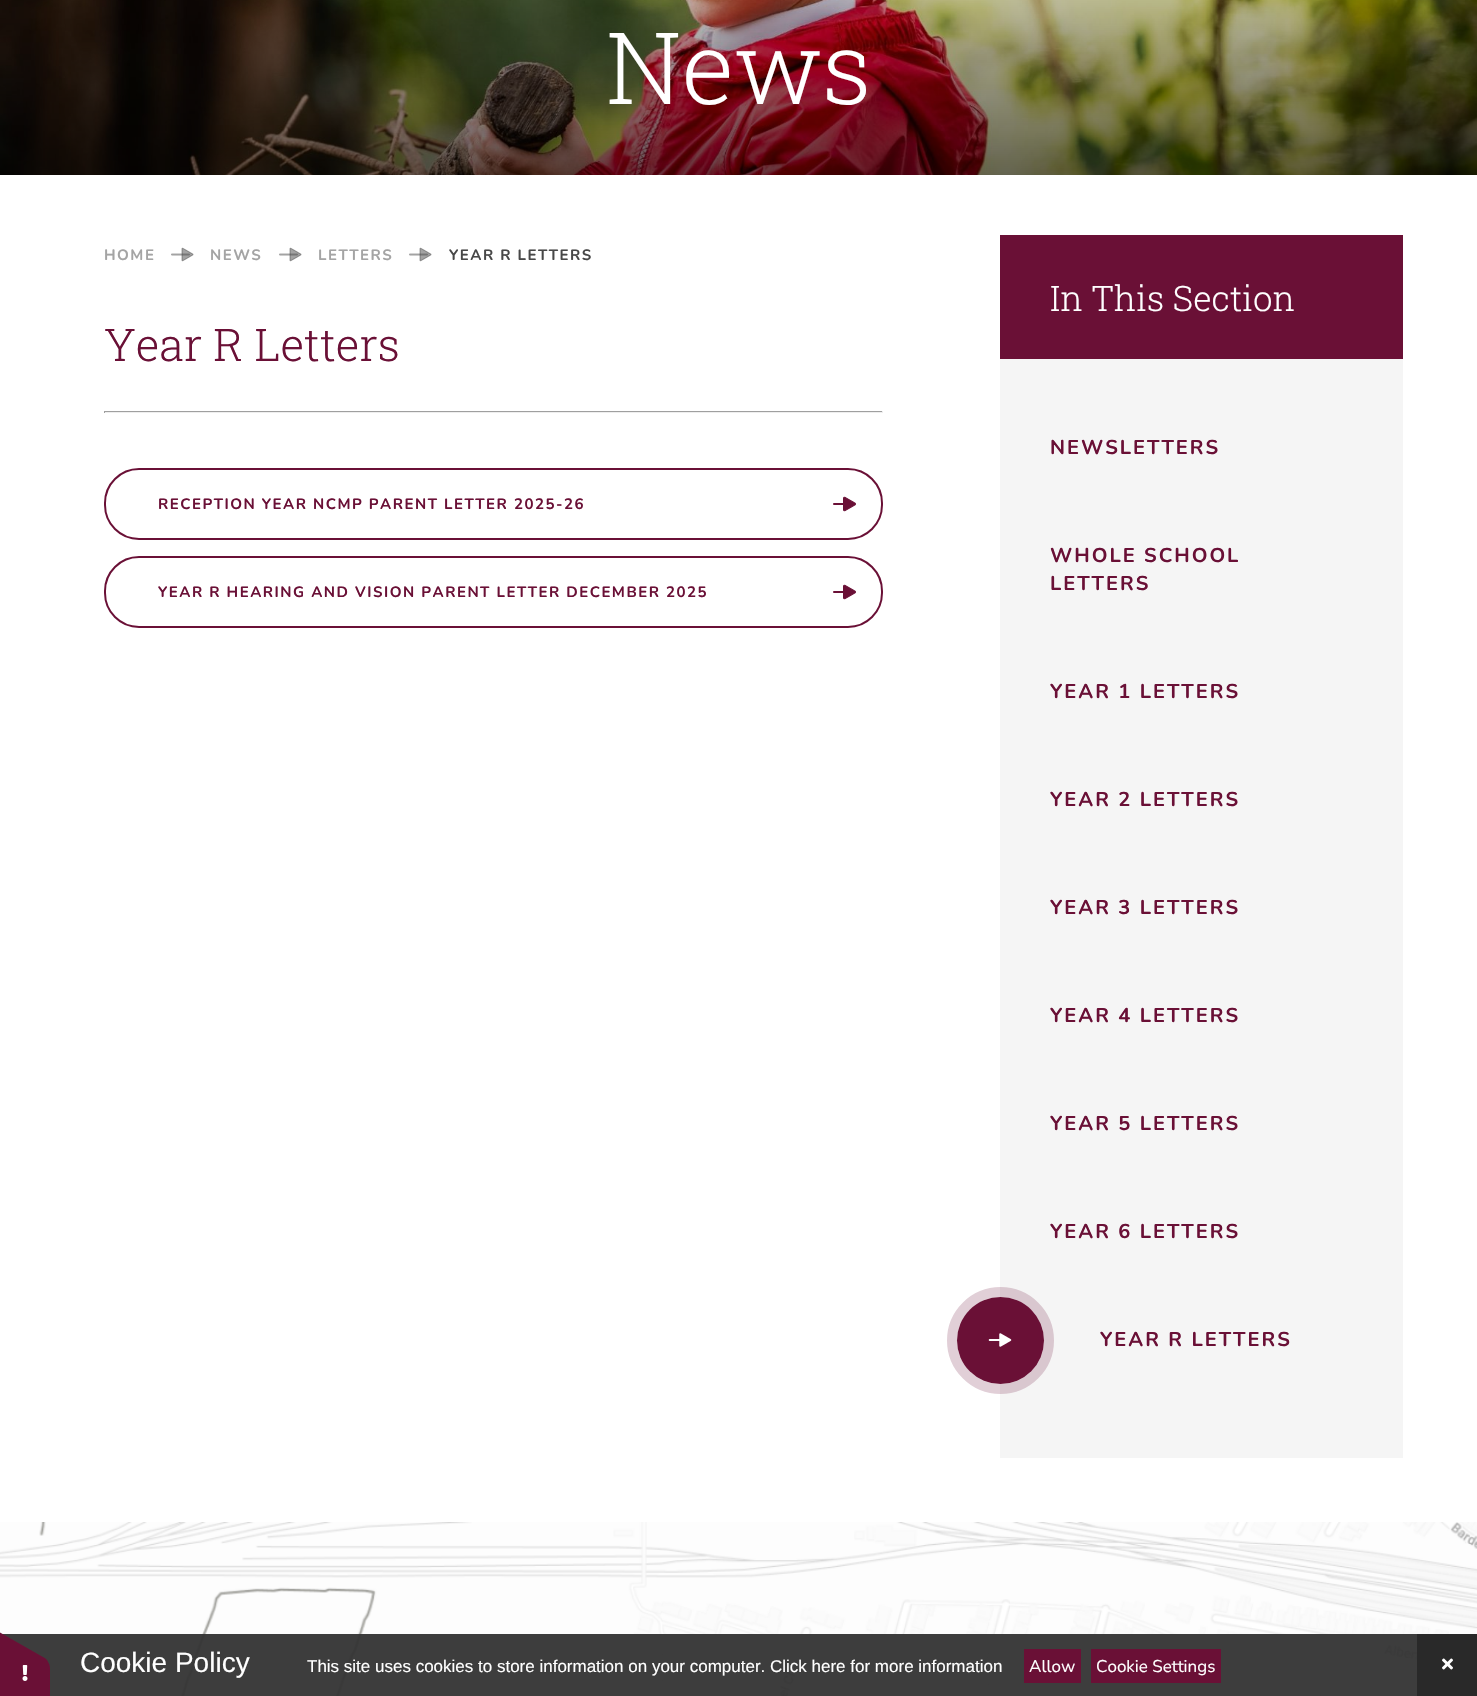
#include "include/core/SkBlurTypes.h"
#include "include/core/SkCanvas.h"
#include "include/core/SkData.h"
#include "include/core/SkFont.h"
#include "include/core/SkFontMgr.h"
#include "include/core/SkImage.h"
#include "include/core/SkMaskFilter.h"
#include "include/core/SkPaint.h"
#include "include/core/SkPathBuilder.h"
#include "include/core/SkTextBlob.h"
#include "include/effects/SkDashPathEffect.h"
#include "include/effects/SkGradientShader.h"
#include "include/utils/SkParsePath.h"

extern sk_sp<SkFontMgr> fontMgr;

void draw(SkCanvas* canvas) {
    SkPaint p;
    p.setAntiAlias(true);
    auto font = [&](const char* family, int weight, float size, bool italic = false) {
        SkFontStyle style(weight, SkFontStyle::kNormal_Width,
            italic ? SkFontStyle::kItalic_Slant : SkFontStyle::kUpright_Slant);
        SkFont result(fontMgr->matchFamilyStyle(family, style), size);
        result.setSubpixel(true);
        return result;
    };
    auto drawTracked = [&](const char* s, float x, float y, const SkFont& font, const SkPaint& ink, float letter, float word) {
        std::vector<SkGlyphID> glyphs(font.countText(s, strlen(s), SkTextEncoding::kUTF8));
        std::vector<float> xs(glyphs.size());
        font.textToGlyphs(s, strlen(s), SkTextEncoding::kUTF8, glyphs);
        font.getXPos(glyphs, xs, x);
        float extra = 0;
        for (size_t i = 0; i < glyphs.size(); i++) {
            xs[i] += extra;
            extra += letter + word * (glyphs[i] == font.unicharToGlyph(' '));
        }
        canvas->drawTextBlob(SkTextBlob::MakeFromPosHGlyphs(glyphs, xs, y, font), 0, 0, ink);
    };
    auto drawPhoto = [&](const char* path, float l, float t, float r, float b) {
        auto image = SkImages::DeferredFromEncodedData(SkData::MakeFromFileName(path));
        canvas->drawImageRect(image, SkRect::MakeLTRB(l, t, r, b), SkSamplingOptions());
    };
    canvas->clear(0xFFFFFFFF);
    drawPhoto("media/1.png", 0, 0, 1477, 175);
    auto font1 = font("Roboto Slab", 300, 100);
    p.setColor(0xFFFFFFFF);
    canvas->drawString("News", 606, 104, font1, p);
    auto font2 = font("Nunito", 700, 15);
    p.setColor(0xFFA4A4A4);
    drawTracked("HOME", 104, 260, font2, p, 1.5f, 0);
    drawPhoto("media/2.png", 171, 247, 194, 262);
    drawTracked("NEWS", 210, 260, font2, p, 1.5f, 0);
    drawPhoto("media/2.png", 279, 247, 302, 262);
    drawTracked("LETTERS", 318, 260, font2, p, 1.5f, 0);
    drawPhoto("media/2.png", 409, 247, 432, 262);
    p.setColor(0xFF484848);
    drawTracked("YEAR R LETTERS", 449, 260, font2, p, 1.5f, 0);
    auto font3 = font("Roboto Slab", 300, 45);
    p.setColor(0xFF6A1036);
    canvas->drawString("Year R Letters", 104, 361, font3, p);
    {
        const struct { float l, t, r, b; SkColor color; } items[] = {
            {104, 411, 883, 412, 0xFF9F9F9F},
            {882, 411, 883, 413, 0xFFEEEEEE},
            {104, 412, 883, 413, 0xFFEEEEEE},
            {104, 411, 105, 413, 0xFF9F9F9F},
        };
        for (auto [l, t, r, b, color] : items) {
            p.setColor(color);
            canvas->drawRect(SkRect::MakeLTRB(l, t, r, b), p);
        }
    }
    p.setStyle(SkPaint::kStroke_Style);
    p.setStrokeWidth(2);
    p.setColor(0xFF6A1036);
    canvas->drawRoundRect(SkRect::MakeLTRB(105, 469, 882, 539), 34, 34, p);
    p.setStyle(SkPaint::kFill_Style);
    drawTracked("RECEPTION YEAR NCMP PARENT LETTER 2025-26", 158, 509, font2, p, 1.5f, 0);
    drawPhoto("media/3.png", 833, 496, 856, 512);
    p.setStyle(SkPaint::kStroke_Style);
    canvas->drawRoundRect(SkRect::MakeLTRB(105, 557, 882, 627), 34, 34, p);
    p.setStyle(SkPaint::kFill_Style);
    drawTracked("YEAR R HEARING AND VISION PARENT LETTER DECEMBER 2025", 158, 597, font2, p, 1.5f, 0);
    drawPhoto("media/3.png", 833, 584, 856, 600);
    p.setColor(0xFFF5F5F5);
    canvas->drawRect(SkRect::MakeLTRB(1000, 359, 1403, 1458), p);
    p.setColor(0xFF6A1036);
    canvas->drawRect(SkRect::MakeLTRB(1000, 235, 1403, 359), p);
    auto font4 = font("Roboto Slab", 300, 35);
    p.setColor(0xFFFFFFFF);
    canvas->drawString("In This Section", 1050, 311, font4, p);
    auto font5 = font("Nunito", 700, 20);
    p.setColor(0xFF6A1036);
    {
        const struct { const char* s; float x, y; } items[] = {
            {"NEWSLETTERS", 1050, 454},
            {"WHOLE SCHOOL", 1050, 562},
            {"LETTERS", 1050, 590},
            {"YEAR 1 LETTERS", 1050, 698},
            {"YEAR 2 LETTERS", 1050, 806},
            {"YEAR 3 LETTERS", 1050, 914},
            {"YEAR 4 LETTERS", 1050, 1022},
            {"YEAR 5 LETTERS", 1050, 1130},
            {"YEAR 6 LETTERS", 1050, 1238},
        };
        for (auto [s, x, y] : items) {
            drawTracked(s, x, y, font5, p, 2, 0);
        }
    }
    p.setStyle(SkPaint::kStroke_Style);
    p.setStrokeWidth(10);
    p.setColor(0x336A1036);
    canvas->drawCircle(1000.5f, 1340.5f, 48.5f, p);
    p.setStyle(SkPaint::kFill_Style);
    p.setColor(0xFF6A1036);
    canvas->drawCircle(1000.5f, 1340.5f, 43.5f, p);
    drawPhoto("media/4.png", 988, 1333, 1012, 1347);
    drawTracked("YEAR R LETTERS", 1100, 1346, font5, p, 2, 0);
    drawPhoto("media/5.png", 0, 1522, 1477, 1696);
    p.setColor(0xF2333333);
    canvas->drawRect(SkRect::MakeLTRB(2, 1634, 1417, 1696), p);
    p.setColor(0xFF6A1036);
    canvas->drawPath(SkPathBuilder().moveTo(50, 1669).lineTo(50, 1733).cubicTo(50, 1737, 48, 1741, 46, 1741).lineTo(-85, 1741).cubicTo(-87, 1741, -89, 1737, -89, 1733).lineTo(-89, 1669).cubicTo(-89, 1664, -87, 1661, -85, 1661).lineTo(46, 1661).cubicTo(48, 1661, 50, 1664, 50, 1669).close().detach(), p);
    canvas->drawPath(SkPathBuilder().moveTo(-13, 1625).lineTo(43, 1657).cubicTo(47, 1659, 49, 1662, 48, 1664).lineTo(-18, 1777).cubicTo(-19, 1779, -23, 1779, -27, 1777).lineTo(-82, 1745).cubicTo(-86, 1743, -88, 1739, -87, 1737).lineTo(-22, 1624).cubicTo(-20, 1622, -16, 1623, -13, 1625).close().detach(), p);
    drawPhoto("media/6.png", 22, 1665, 28, 1681);
    auto font6 = font("Liberation Sans", 400, 28);
    p.setColor(0xFFFFFFFF);
    canvas->drawString("Cookie Policy", 80, 1672, font6, p);
    auto font7 = font("Liberation Sans", 400, 17);
    canvas->drawString("This site uses cookies to store information on your computer. Click here for more information", 307, 1672, font7, p);
    p.setColor(0xFF6A1036);
    canvas->drawRect(SkRect::MakeLTRB(1024, 1649, 1081, 1683), p);
    auto font8 = font("Nunito", 400, 17);
    p.setColor(0xFFFFFFFF);
    canvas->drawString("Allow", 1029, 1672, font8, p);
    p.setColor(0xFF6A1036);
    canvas->drawRect(SkRect::MakeLTRB(1091, 1649, 1221, 1683), p);
    p.setColor(0xFFFFFFFF);
    canvas->drawString("Cookie Settings", 1096, 1672, font8, p);
    p.setColor(0xFF292929);
    canvas->drawRect(SkRect::MakeLTRB(1417, 1634, 1477, 1696), p);
    drawPhoto("media/7.png", 1442, 1658, 1453, 1670);
}
